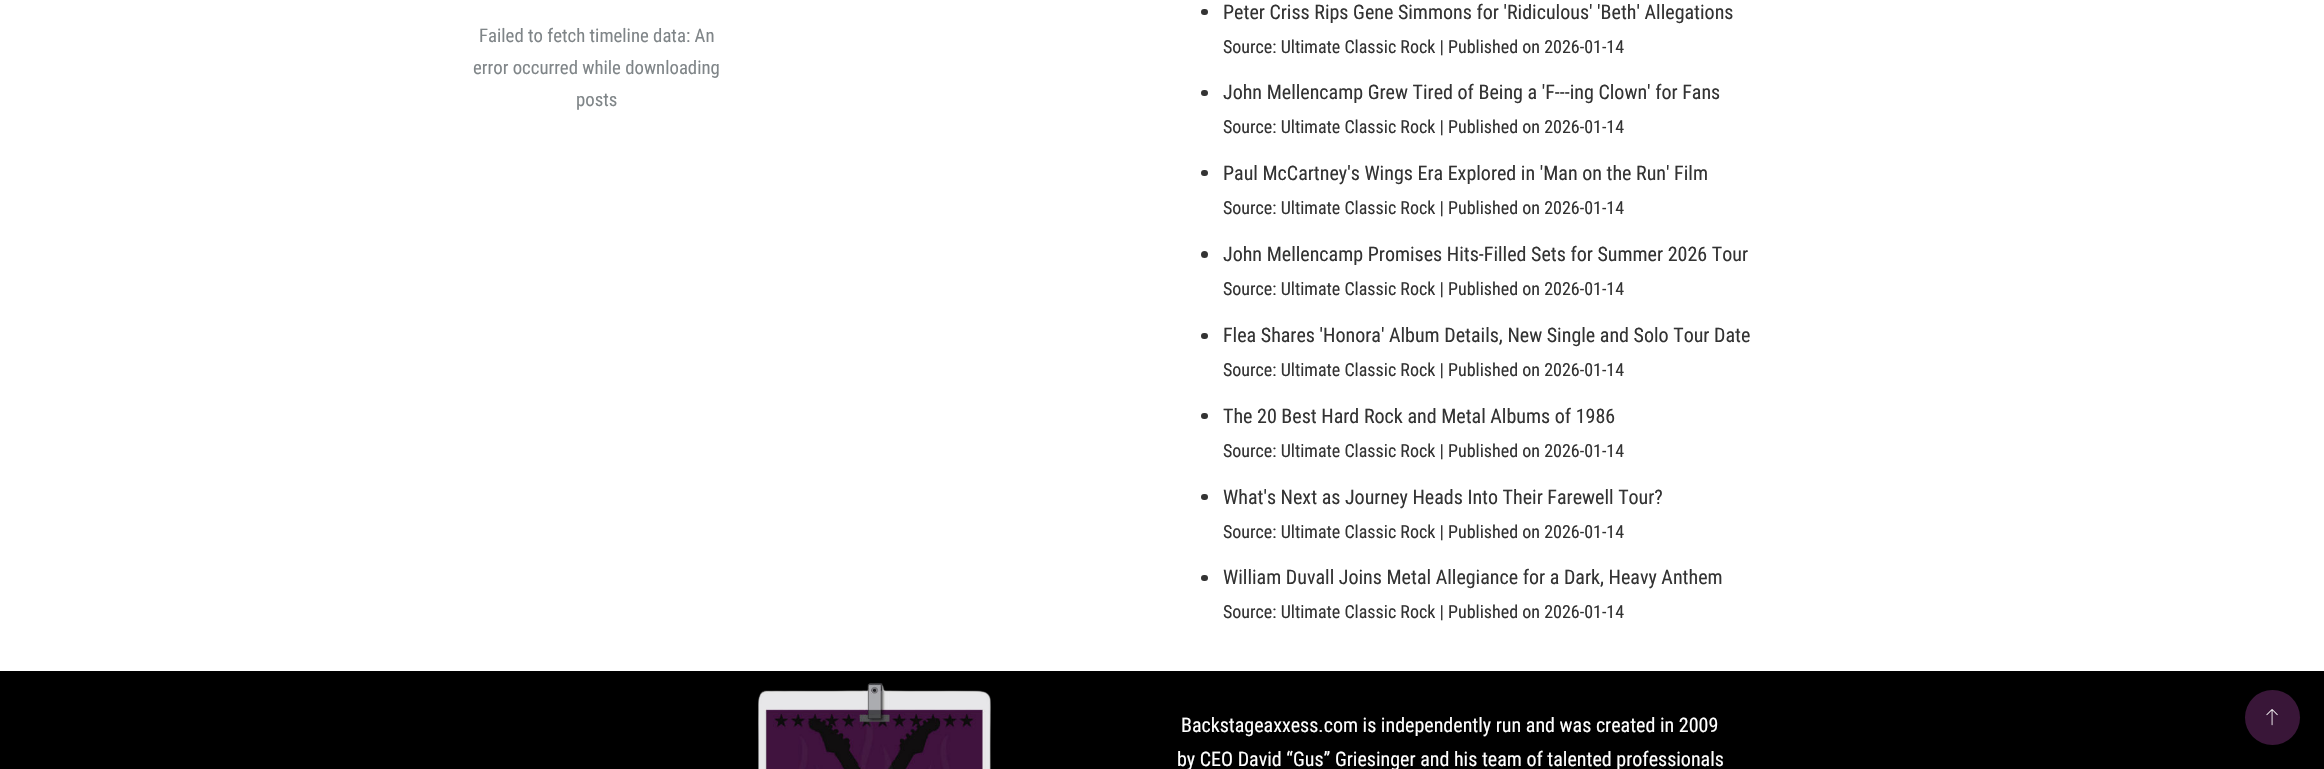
#include "include/core/SkBlurTypes.h"
#include "include/core/SkCanvas.h"
#include "include/core/SkData.h"
#include "include/core/SkFont.h"
#include "include/core/SkFontMgr.h"
#include "include/core/SkImage.h"
#include "include/core/SkMaskFilter.h"
#include "include/core/SkPaint.h"
#include "include/core/SkPathBuilder.h"
#include "include/core/SkTextBlob.h"
#include "include/effects/SkDashPathEffect.h"
#include "include/effects/SkGradientShader.h"
#include "include/utils/SkParsePath.h"

extern sk_sp<SkFontMgr> fontMgr;

void draw(SkCanvas* canvas) {
    SkPaint p;
    p.setAntiAlias(true);
    auto font = [&](const char* family, int weight, float size, bool italic = false) {
        SkFontStyle style(weight, SkFontStyle::kNormal_Width,
            italic ? SkFontStyle::kItalic_Slant : SkFontStyle::kUpright_Slant);
        SkFont result(fontMgr->matchFamilyStyle(family, style), size);
        result.setSubpixel(true);
        return result;
    };
    auto drawPhoto = [&](const char* path, float l, float t, float r, float b) {
        auto image = SkImages::DeferredFromEncodedData(SkData::MakeFromFileName(path));
        canvas->drawImageRect(image, SkRect::MakeLTRB(l, t, r, b), SkSamplingOptions());
    };
    canvas->clear(0xFFFFFFFF);
    auto font1 = font("Roboto Condensed", 400, 18.75f);
    p.setColor(0xFF7F8588);
    {
        const struct { const char* s; float x, y; } items[] = {
            {"Failed to fetch timeline data: An", 479, 42},
            {"error occurred while downloading", 473, 74},
            {"posts", 576, 106},
        };
        for (auto [s, x, y] : items) {
            canvas->drawString(s, x, y, font1, p);
        }
    }
    p.setColor(0xFF333333);
    canvas->drawRoundRect(SkRect::MakeLTRB(1201, 9, 1208, 15), 3, 3, p);
    auto font2 = font("Roboto Condensed", 400, 20);
    canvas->drawString("Peter Criss Rips Gene Simmons for 'Ridiculous' 'Beth' Allegations", 1223, 19, font2, p);
    auto font3 = font("Roboto Condensed", 400, 18);
    canvas->drawString("Source: Ultimate Classic Rock | Published on 2026-01-14", 1223, 53, font3, p);
    canvas->drawRoundRect(SkRect::MakeLTRB(1201, 90, 1208, 96), 3, 3, p);
    canvas->drawString("John Mellencamp Grew Tired of Being a 'F---ing Clown' for Fans", 1223, 99, font2, p);
    canvas->drawString("Source: Ultimate Classic Rock | Published on 2026-01-14", 1223, 133, font3, p);
    canvas->drawRoundRect(SkRect::MakeLTRB(1201, 170, 1208, 176), 3, 3, p);
    canvas->drawString("Paul McCartney's Wings Era Explored in 'Man on the Run' Film", 1223, 180, font2, p);
    canvas->drawString("Source: Ultimate Classic Rock | Published on 2026-01-14", 1223, 214, font3, p);
    canvas->drawCircle(1204.5f, 254.5f, 3.5f, p);
    canvas->drawString("John Mellencamp Promises Hits-Filled Sets for Summer 2026 Tour", 1223, 261, font2, p);
    canvas->drawString("Source: Ultimate Classic Rock | Published on 2026-01-14", 1223, 295, font3, p);
    canvas->drawRoundRect(SkRect::MakeLTRB(1201, 333, 1208, 339), 3, 3, p);
    canvas->drawString("Flea Shares 'Honora' Album Details, New Single and Solo Tour Date", 1223, 342, font2, p);
    canvas->drawString("Source: Ultimate Classic Rock | Published on 2026-01-14", 1223, 376, font3, p);
    canvas->drawRoundRect(SkRect::MakeLTRB(1201, 413, 1208, 419), 3, 3, p);
    canvas->drawString("The 20 Best Hard Rock and Metal Albums of 1986", 1223, 423, font2, p);
    canvas->drawString("Source: Ultimate Classic Rock | Published on 2026-01-14", 1223, 457, font3, p);
    canvas->drawRoundRect(SkRect::MakeLTRB(1201, 494, 1208, 500), 3, 3, p);
    canvas->drawString("What's Next as Journey Heads Into Their Farewell Tour?", 1223, 504, font2, p);
    canvas->drawString("Source: Ultimate Classic Rock | Published on 2026-01-14", 1223, 538, font3, p);
    canvas->drawRoundRect(SkRect::MakeLTRB(1201, 575, 1208, 581), 3, 3, p);
    canvas->drawString("William Duvall Joins Metal Allegiance for a Dark, Heavy Anthem", 1223, 584, font2, p);
    canvas->drawString("Source: Ultimate Classic Rock | Published on 2026-01-14", 1223, 618, font3, p);
    p.setColor(0xFF000000);
    canvas->drawRect(SkRect::MakeLTRB(0, 671, 2324, 769), p);
    drawPhoto("media/1.png", 758, 683, 991, 769);
    p.setColor(0xFFFFFFFF);
    canvas->drawString("Backstageaxxess.com is independently run and was created in 2009", 1181, 732, font2, p);
    canvas->drawString("by CEO David “Gus” Griesinger and his team of talented professionals", 1177, 766, font2, p);
    p.setColor(0xFF391638);
    canvas->drawCircle(2272.5f, 717.5f, 27.5f, p);
    drawPhoto("media/2.png", 2266, 709, 2278, 726);
}
